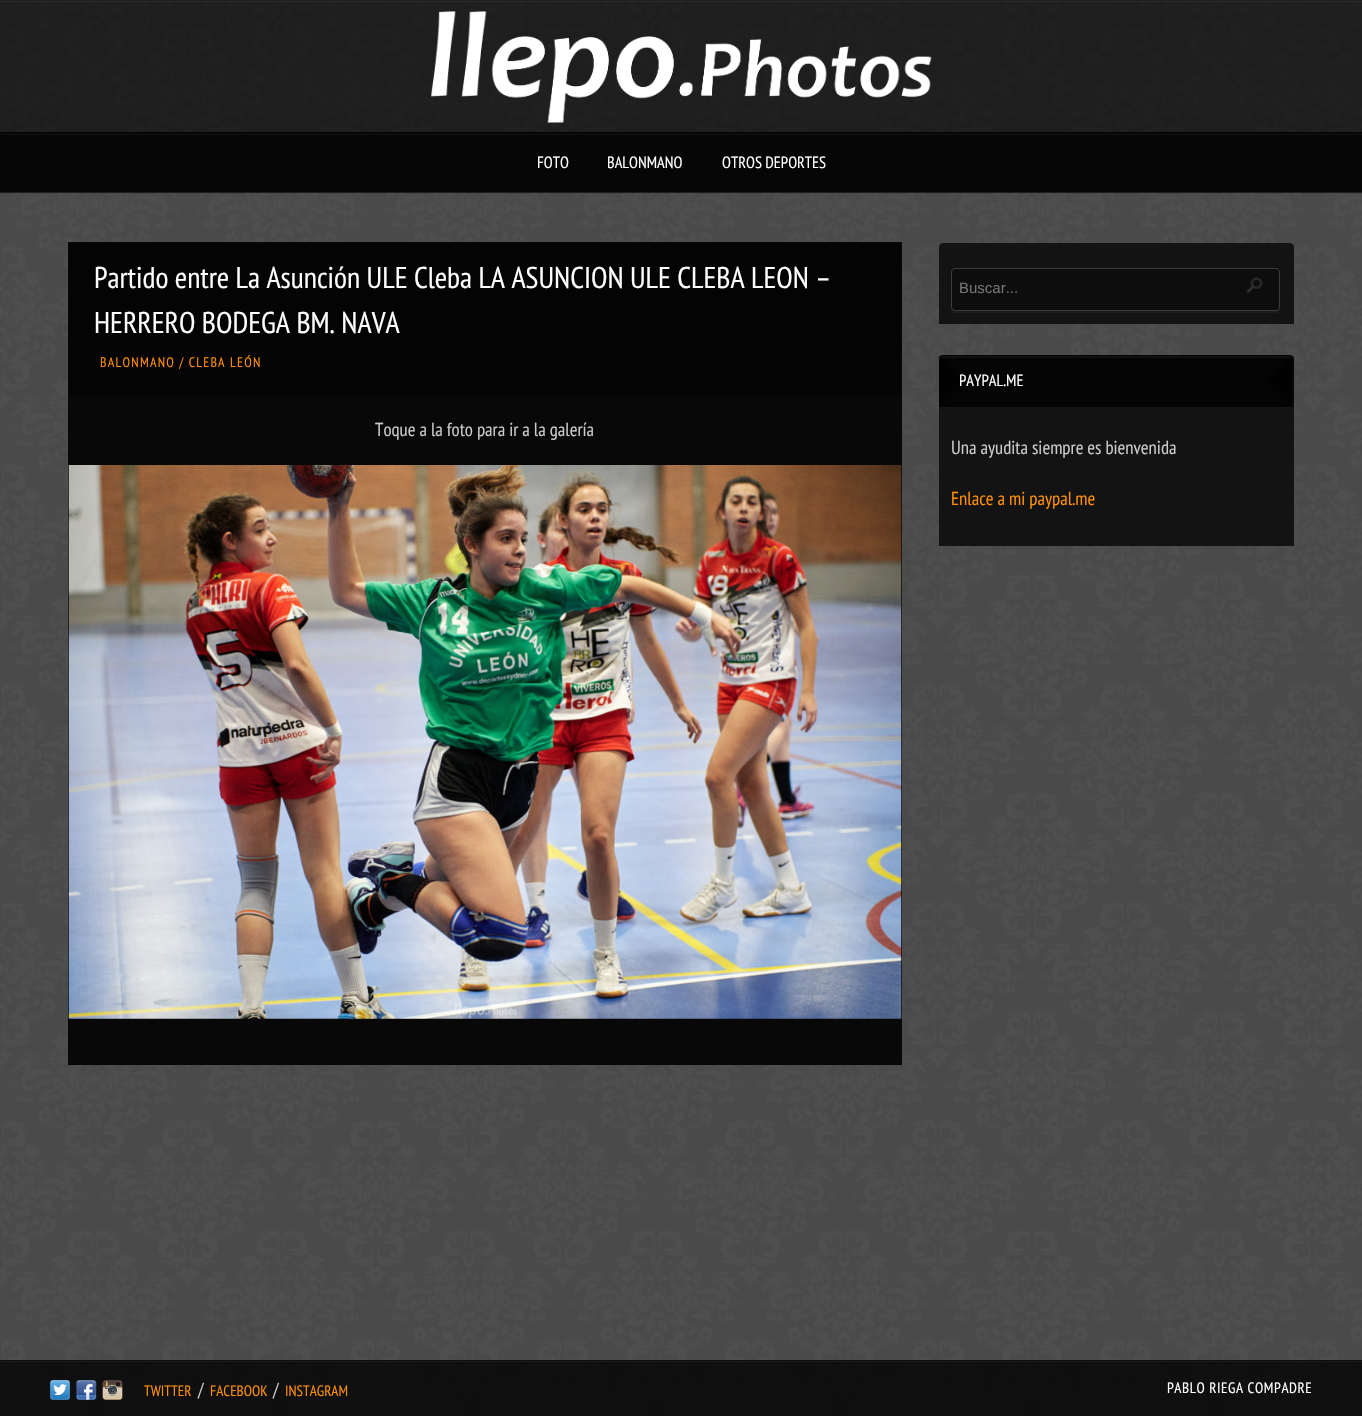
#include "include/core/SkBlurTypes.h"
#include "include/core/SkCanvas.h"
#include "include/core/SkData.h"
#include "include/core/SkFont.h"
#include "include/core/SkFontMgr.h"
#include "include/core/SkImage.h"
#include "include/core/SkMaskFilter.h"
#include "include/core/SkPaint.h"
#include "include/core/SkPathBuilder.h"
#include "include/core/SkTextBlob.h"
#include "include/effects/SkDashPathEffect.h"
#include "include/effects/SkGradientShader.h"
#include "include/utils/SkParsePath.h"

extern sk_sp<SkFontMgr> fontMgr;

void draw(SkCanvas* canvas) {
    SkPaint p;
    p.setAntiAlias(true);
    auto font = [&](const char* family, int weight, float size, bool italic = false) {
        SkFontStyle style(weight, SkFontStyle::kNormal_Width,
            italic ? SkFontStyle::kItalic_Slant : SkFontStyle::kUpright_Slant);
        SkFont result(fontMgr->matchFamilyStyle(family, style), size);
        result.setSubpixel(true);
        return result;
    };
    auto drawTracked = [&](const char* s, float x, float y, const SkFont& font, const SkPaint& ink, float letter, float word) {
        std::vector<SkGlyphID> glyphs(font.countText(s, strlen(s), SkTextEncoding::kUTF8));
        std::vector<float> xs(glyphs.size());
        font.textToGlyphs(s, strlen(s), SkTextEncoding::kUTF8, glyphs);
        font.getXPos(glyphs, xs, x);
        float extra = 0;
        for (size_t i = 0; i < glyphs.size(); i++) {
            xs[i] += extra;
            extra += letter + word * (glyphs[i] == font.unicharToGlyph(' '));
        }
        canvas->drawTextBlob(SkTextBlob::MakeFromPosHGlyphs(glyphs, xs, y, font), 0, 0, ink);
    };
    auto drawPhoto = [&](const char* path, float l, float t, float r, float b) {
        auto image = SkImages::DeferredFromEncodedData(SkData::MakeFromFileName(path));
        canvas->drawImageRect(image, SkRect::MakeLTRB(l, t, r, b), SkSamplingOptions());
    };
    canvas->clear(0xFF4A4A4A);
    drawPhoto("media/1.png", 0, 0, 1362, 1415);
    canvas->save();
    canvas->clipPath(SkPathBuilder(SkPathFillType::kEvenOdd).moveTo(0, 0).lineTo(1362, 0).lineTo(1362, 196).lineTo(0, 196).close().moveTo(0, 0).lineTo(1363, 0).lineTo(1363, 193).lineTo(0, 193).close().detach(), true);
    p.setColor(0x4D000000);
    p.setMaskFilter(SkMaskFilter::MakeBlur(kNormal_SkBlurStyle, 0.5f));
    canvas->drawRect(SkRect::MakeLTRB(0, 0, 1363, 193), p);
    p.setMaskFilter(nullptr);
    canvas->restore();
    p.setColor(0x99000000);
    canvas->drawRect(SkRect::MakeLTRB(0, 0, 1362, 193), p);
    p.setColor(0xFF292929);
    canvas->drawRect(SkRect::MakeLTRB(0, 1, 1362, 2), p);
    drawPhoto("media/2.png", 431, 11, 932, 123);
    p.setColor(0xFF060606);
    canvas->drawRect(SkRect::MakeLTRB(0, 132, 1362, 192), p);
    p.setColor(0xFF121212);
    canvas->drawRect(SkRect::MakeLTRB(0, 134, 1362, 135), p);
    auto font1 = font("PT Sans Narrow", 400, 16.25f);
    p.setColor(0xFFFFFFFF);
    {
        const struct { const char* s; float x, y; } items[] = {
            {"FOTO", 537, 168},
            {"BALONMANO", 607, 168},
            {"OTROS DEPORTES", 722, 168},
        };
        for (auto [s, x, y] : items) {
            canvas->drawString(s, x, y, font1, p);
        }
    }
    p.setColor(0xE6000000);
    canvas->drawRect(SkRect::MakeLTRB(68, 242, 902, 1065), p);
    p.setColor(0xFF040404);
    canvas->drawRect(SkRect::MakeLTRB(69, 243, 901, 395), p);
    auto font2 = font("PT Sans Narrow", 400, 30);
    p.setColor(0xFFFFFFFF);
    canvas->drawString("Partido entre La Asunción ULE Cleba LA ASUNCION ULE CLEBA LEON –", 94, 288, font2, p);
    canvas->drawString("HERRERO BODEGA BM. NAVA", 94, 333, font2, p);
    auto font3 = font("PT Sans Narrow", 400, 13.75f);
    p.setColor(0xFFFF8F05);
    drawTracked("BALONMANO / CLEBA LEÓN", 100, 367, font3, p, 1.25f, 0);
    auto font4 = font("PT Sans Narrow", 400, 18.75f);
    p.setColor(0xFFCBCBCB);
    canvas->drawString("Toque a la foto para ir a la galería", 375, 436, font4, p);
    drawPhoto("media/3.png", 68, 465, 902, 1019);
    p.setColor(0xE60C0C0C);
    canvas->drawPath(SkPathBuilder().moveTo(943, 243).lineTo(1290, 243).cubicTo(1292, 243, 1294, 245, 1294, 247).lineTo(1294, 324).lineTo(939, 324).lineTo(939, 247).cubicTo(939, 245, 941, 243, 943, 243).close().detach(), p);
    p.setColor(0xFF1C1C1C);
    canvas->drawPath(SkPathBuilder().moveTo(951, 272).lineTo(951, 309).cubicTo(951, 311, 953, 313, 955, 313).lineTo(1276, 313).cubicTo(1278, 313, 1280, 311, 1280, 309).lineTo(1280, 308).cubicTo(1280, 310, 1278, 311, 1276, 311).lineTo(955, 311).cubicTo(953, 311, 951, 310, 951, 308).close().detach(), p);
    p.setColor(0xE60C0C0C);
    canvas->drawRoundRect(SkRect::MakeLTRB(951, 268, 1280, 311), 4, 4, p);
    p.setStyle(SkPaint::kStroke_Style);
    p.setStrokeWidth(1);
    p.setColor(0xCC464646);
    canvas->drawRoundRect(SkRect::MakeLTRB(951.5f, 268.5f, 1279.5f, 310.5f), 3.5f, 3.5f, p);
    auto font5 = font("Liberation Sans", 400, 15);
    p.setStyle(SkPaint::kFill_Style);
    p.setColor(0xFF757575);
    canvas->drawString("Buscar...", 959, 293, font5, p);
    drawPhoto("media/4.png", 1246, 277, 1263, 294);
    p.setColor(0xE60C0C0C);
    canvas->drawPath(SkPathBuilder().moveTo(943, 355).lineTo(1290, 355).cubicTo(1292, 355, 1294, 357, 1294, 359).lineTo(1294, 546).lineTo(939, 546).lineTo(939, 359).cubicTo(939, 357, 941, 355, 943, 355).close().detach(), p);
    drawPhoto("media/5.png", 939, 355, 1294, 407);
    p.setColor(0xFF101010);
    canvas->drawPath(SkPathBuilder().moveTo(942, 358).lineTo(1290, 358).cubicTo(1291, 358, 1292, 359, 1292, 360).lineTo(1292, 406).lineTo(1293, 406).lineTo(1293, 358).cubicTo(1293, 357, 1292, 356, 1290, 356).lineTo(942, 356).cubicTo(941, 356, 940, 357, 940, 358).lineTo(940, 360).cubicTo(940, 359, 941, 358, 942, 358).close().detach(), p);
    p.setColor(0x99000000);
    canvas->drawPath(SkPathBuilder().moveTo(1293, 356).lineTo(1268, 381).lineTo(1294, 408).lineTo(1294, 358).close().detach(), p);
    canvas->drawPath(SkPathBuilder().moveTo(940, 356).cubicTo(939, 357, 939, 358, 939, 359).lineTo(939, 407).lineTo(965, 381).close().detach(), p);
    p.setColor(0xFFFFFFFF);
    canvas->drawString("PAYPAL.ME", 959, 386, font1, p);
    p.setColor(0xFFCBCBCB);
    canvas->drawString("Una ayudita siempre es bienvenida", 951, 454, font4, p);
    p.setColor(0xFFFF8F05);
    canvas->drawString("Enlace a mi paypal.me", 951, 505, font4, p);
    {
        const struct { float l, t, r, b; SkColor color; } items[] = {
            {0, 1362, 1362, 1415, 0xCC000000},
            {0, 1361, 1362, 1362, 0xFF1B1B1B},
            {0, 1360, 1362, 1361, 0xFF0E0E0E},
            {0, 1415, 1362, 1416, 0xFF0E0E0E},
        };
        for (auto [l, t, r, b, color] : items) {
            p.setColor(color);
            canvas->drawRect(SkRect::MakeLTRB(l, t, r, b), p);
        }
    }
    drawPhoto("media/6.png", 50, 1380, 70, 1400);
    drawPhoto("media/7.png", 76, 1380, 97, 1400);
    drawPhoto("media/8.png", 102, 1380, 123, 1400);
    auto font6 = font("PT Sans Narrow", 400, 15);
    p.setColor(0xFFFF8F05);
    canvas->drawString("TWITTER", 144, 1396, font6, p);
    p.setColor(0xFFCBCBCB);
    canvas->drawString("/", 198, 1396, font4, p);
    p.setColor(0xFFFF8F05);
    canvas->drawString("FACEBOOK", 210, 1396, font6, p);
    p.setColor(0xFFCBCBCB);
    canvas->drawString("/", 273, 1396, font4, p);
    p.setColor(0xFFFF8F05);
    canvas->drawString("INSTAGRAM", 285, 1396, font6, p);
    p.setColor(0xFFFFFFFF);
    drawTracked("PABLO RIEGA COMPADRE", 1167, 1393, font6, p, 0.6f, 0);
}
